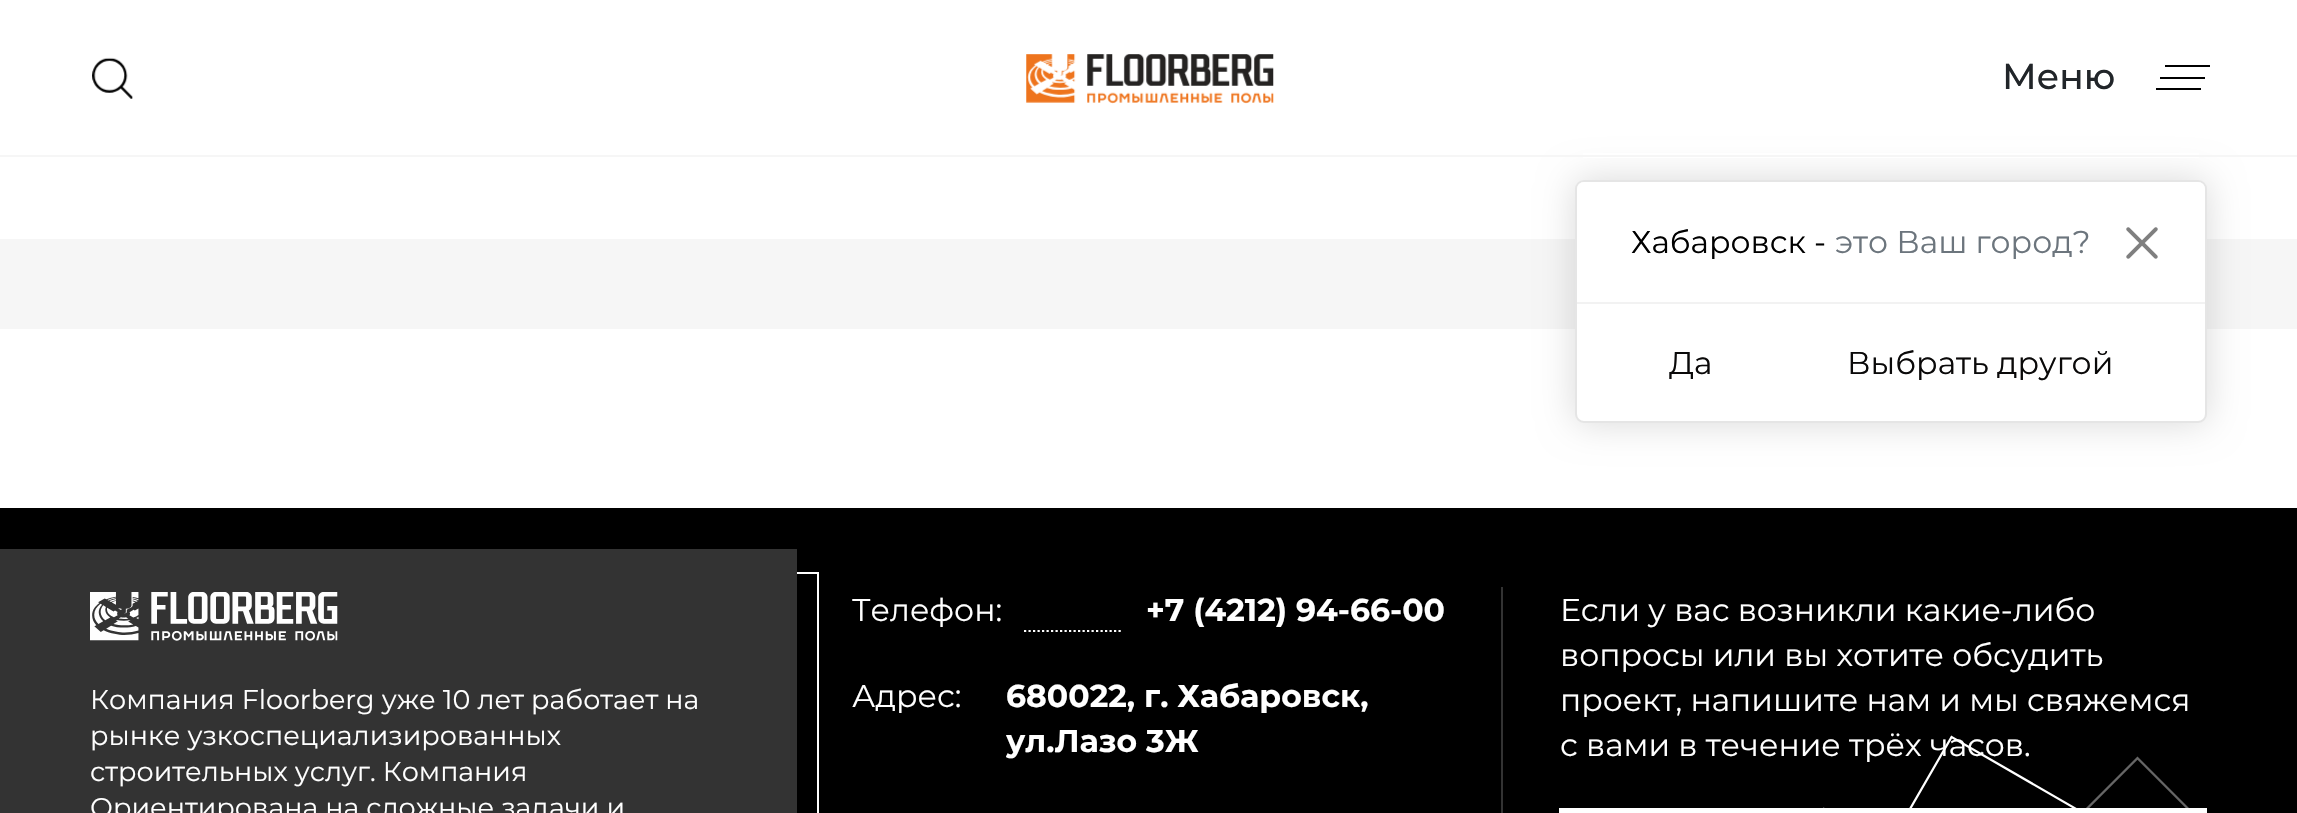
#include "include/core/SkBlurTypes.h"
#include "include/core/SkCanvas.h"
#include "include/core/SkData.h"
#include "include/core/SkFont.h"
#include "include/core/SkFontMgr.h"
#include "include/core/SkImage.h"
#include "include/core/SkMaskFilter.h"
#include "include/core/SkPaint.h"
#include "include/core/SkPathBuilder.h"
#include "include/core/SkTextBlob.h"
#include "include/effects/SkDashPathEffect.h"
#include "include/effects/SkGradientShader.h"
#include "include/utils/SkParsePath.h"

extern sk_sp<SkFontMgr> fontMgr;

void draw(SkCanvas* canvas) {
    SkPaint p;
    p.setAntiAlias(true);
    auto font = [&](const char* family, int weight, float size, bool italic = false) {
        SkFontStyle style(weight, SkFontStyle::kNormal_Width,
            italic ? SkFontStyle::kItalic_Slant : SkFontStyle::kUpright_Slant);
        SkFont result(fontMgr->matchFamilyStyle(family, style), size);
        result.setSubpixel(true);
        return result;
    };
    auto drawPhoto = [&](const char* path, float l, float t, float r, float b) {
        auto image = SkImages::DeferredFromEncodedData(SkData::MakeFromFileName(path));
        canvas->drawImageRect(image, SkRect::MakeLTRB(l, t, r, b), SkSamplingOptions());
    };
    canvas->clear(0xFFFFFFFF);
    p.setColor(0xFFF6F6F6);
    canvas->drawRect(SkRect::MakeLTRB(0, 239, 2297, 329), p);
    p.setColor(0x26000000);
    p.setMaskFilter(SkMaskFilter::MakeBlur(kNormal_SkBlurStyle, 18));
    canvas->drawRoundRect(SkRect::MakeLTRB(1575, 180, 2207, 423), 9, 9, p);
    p.setMaskFilter(nullptr);
    p.setColor(0xFFFFFFFF);
    canvas->drawRect(SkRect::MakeLTRB(1583, 153, 2199, 158), p);
    p.setColor(0xFFF6F6F6);
    canvas->drawRect(SkRect::MakeLTRB(0, 155, 2297, 157), p);
    drawPhoto("media/1.png", 1026, 54, 1274, 104);
    drawPhoto("media/2.png", 92, 57, 133, 99);
    auto font1 = font("Montserrat", 500, 36);
    p.setColor(0xFF212529);
    canvas->drawString("Меню", 2002, 89, font1, p);
    {
        const struct { float l, t, r, b; SkColor color; } items[] = {
            {2165, 65, 2210, 67, 0xFF000000},
            {2160, 77, 2205, 79, 0xFF000000},
            {2156, 88, 2201, 90, 0xFF000000},
        };
        for (auto [l, t, r, b, color] : items) {
            p.setColor(color);
            canvas->drawRect(SkRect::MakeLTRB(l, t, r, b), p);
        }
    }
    p.setColor(0xFFFFFFFF);
    canvas->drawRoundRect(SkRect::MakeLTRB(1576, 181, 2206, 422), 8, 8, p);
    p.setStyle(SkPaint::kStroke_Style);
    p.setStrokeWidth(2);
    p.setColor(0xFFE5E5E5);
    canvas->drawRoundRect(SkRect::MakeLTRB(1576, 181, 2206, 422), 8, 8, p);
    p.setStyle(SkPaint::kFill_Style);
    p.setColor(0xD9FFFFFF);
    canvas->drawPath(SkPathBuilder().moveTo(1584, 182).lineTo(2198, 182).cubicTo(2202, 182, 2205, 185, 2205, 189).lineTo(2205, 302).lineTo(1577, 302).lineTo(1577, 189).cubicTo(1577, 185, 1580, 182, 1584, 182).close().detach(), p);
    p.setColor(0xFFF2F2F2);
    canvas->drawRect(SkRect::MakeLTRB(1577, 302, 2205, 304), p);
    auto font2 = font("Montserrat", 400, 31.5f);
    p.setColor(0xFF000000);
    canvas->drawString("Хабаровск -", 1631, 253, font2, p);
    p.setColor(0xFF6C757D);
    canvas->drawString("это Ваш город?", 1835, 253, font2, p);
    drawPhoto("media/3.png", 2126, 227, 2158, 259);
    p.setColor(0xFF0A0909);
    canvas->drawString("Да", 1669, 374, font2, p);
    canvas->drawString("Выбрать другой", 1847, 374, font2, p);
    drawPhoto("media/4.png", 0, 508, 2297, 813);
    p.setStyle(SkPaint::kStroke_Style);
    p.setColor(0xFFFFFFFF);
    canvas->drawRect(SkRect::MakeLTRB(24, 573, 818, 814), p);
    p.setStyle(SkPaint::kFill_Style);
    p.setColor(0xFF333333);
    canvas->drawRect(SkRect::MakeLTRB(0, 549, 797, 813), p);
    drawPhoto("media/5.png", 90, 592, 338, 641);
    auto font3 = font("Montserrat", 400, 27);
    p.setColor(0xFFFFFFFF);
    {
        const struct { const char* s; float x, y; } items[] = {
            {"Компания Floorberg уже 10 лет работает на", 90, 709},
            {"рынке узкоспециализированных", 90, 745},
            {"строительных услуг. Компания", 90, 781},
            {"Ориентирована на сложные задачи и", 90, 817},
        };
        for (auto [s, x, y] : items) {
            canvas->drawString(s, x, y, font3, p);
        }
    }
    canvas->drawString("Телефон:", 852, 621, font2, p);
    auto font4 = font("Montserrat", 700, 31.5f);
    canvas->drawString("+7 (4212) 94-66-00", 1146, 621, font4, p);
    p.setStyle(SkPaint::kStroke_Style);
    p.setStrokeWidth(2.2f);
    p.setPathEffect(SkDashPathEffect::Make({{2.25f, 2.25f}}, 0));
    canvas->drawPath(SkPathBuilder().moveTo(1024, 631).lineTo(1123, 631).detach(), p);
    p.setPathEffect(nullptr);
    p.setStyle(SkPaint::kFill_Style);
    canvas->drawString("Адрес:", 852, 707, font2, p);
    canvas->drawString("680022, г. Хабаровск,", 1006, 707, font4, p);
    canvas->drawString("ул.Лазо 3Ж", 1006, 752, font4, p);
    p.setColor(0xFF333333);
    canvas->drawRect(SkRect::MakeLTRB(1501, 587, 1503, 813), p);
    p.setColor(0xFFFFFFFF);
    {
        const struct { const char* s; float x, y; } items[] = {
            {"Если у вас возникли какие-либо", 1560, 621},
            {"вопросы или вы хотите обсудить", 1560, 666},
            {"проект, напишите нам и мы свяжемся", 1560, 711},
            {"с вами в течение трёх часов.", 1560, 756},
        };
        for (auto [s, x, y] : items) {
            canvas->drawString(s, x, y, font2, p);
        }
    }
    canvas->drawRect(SkRect::MakeLTRB(1559, 808, 2207, 813), p);
}
